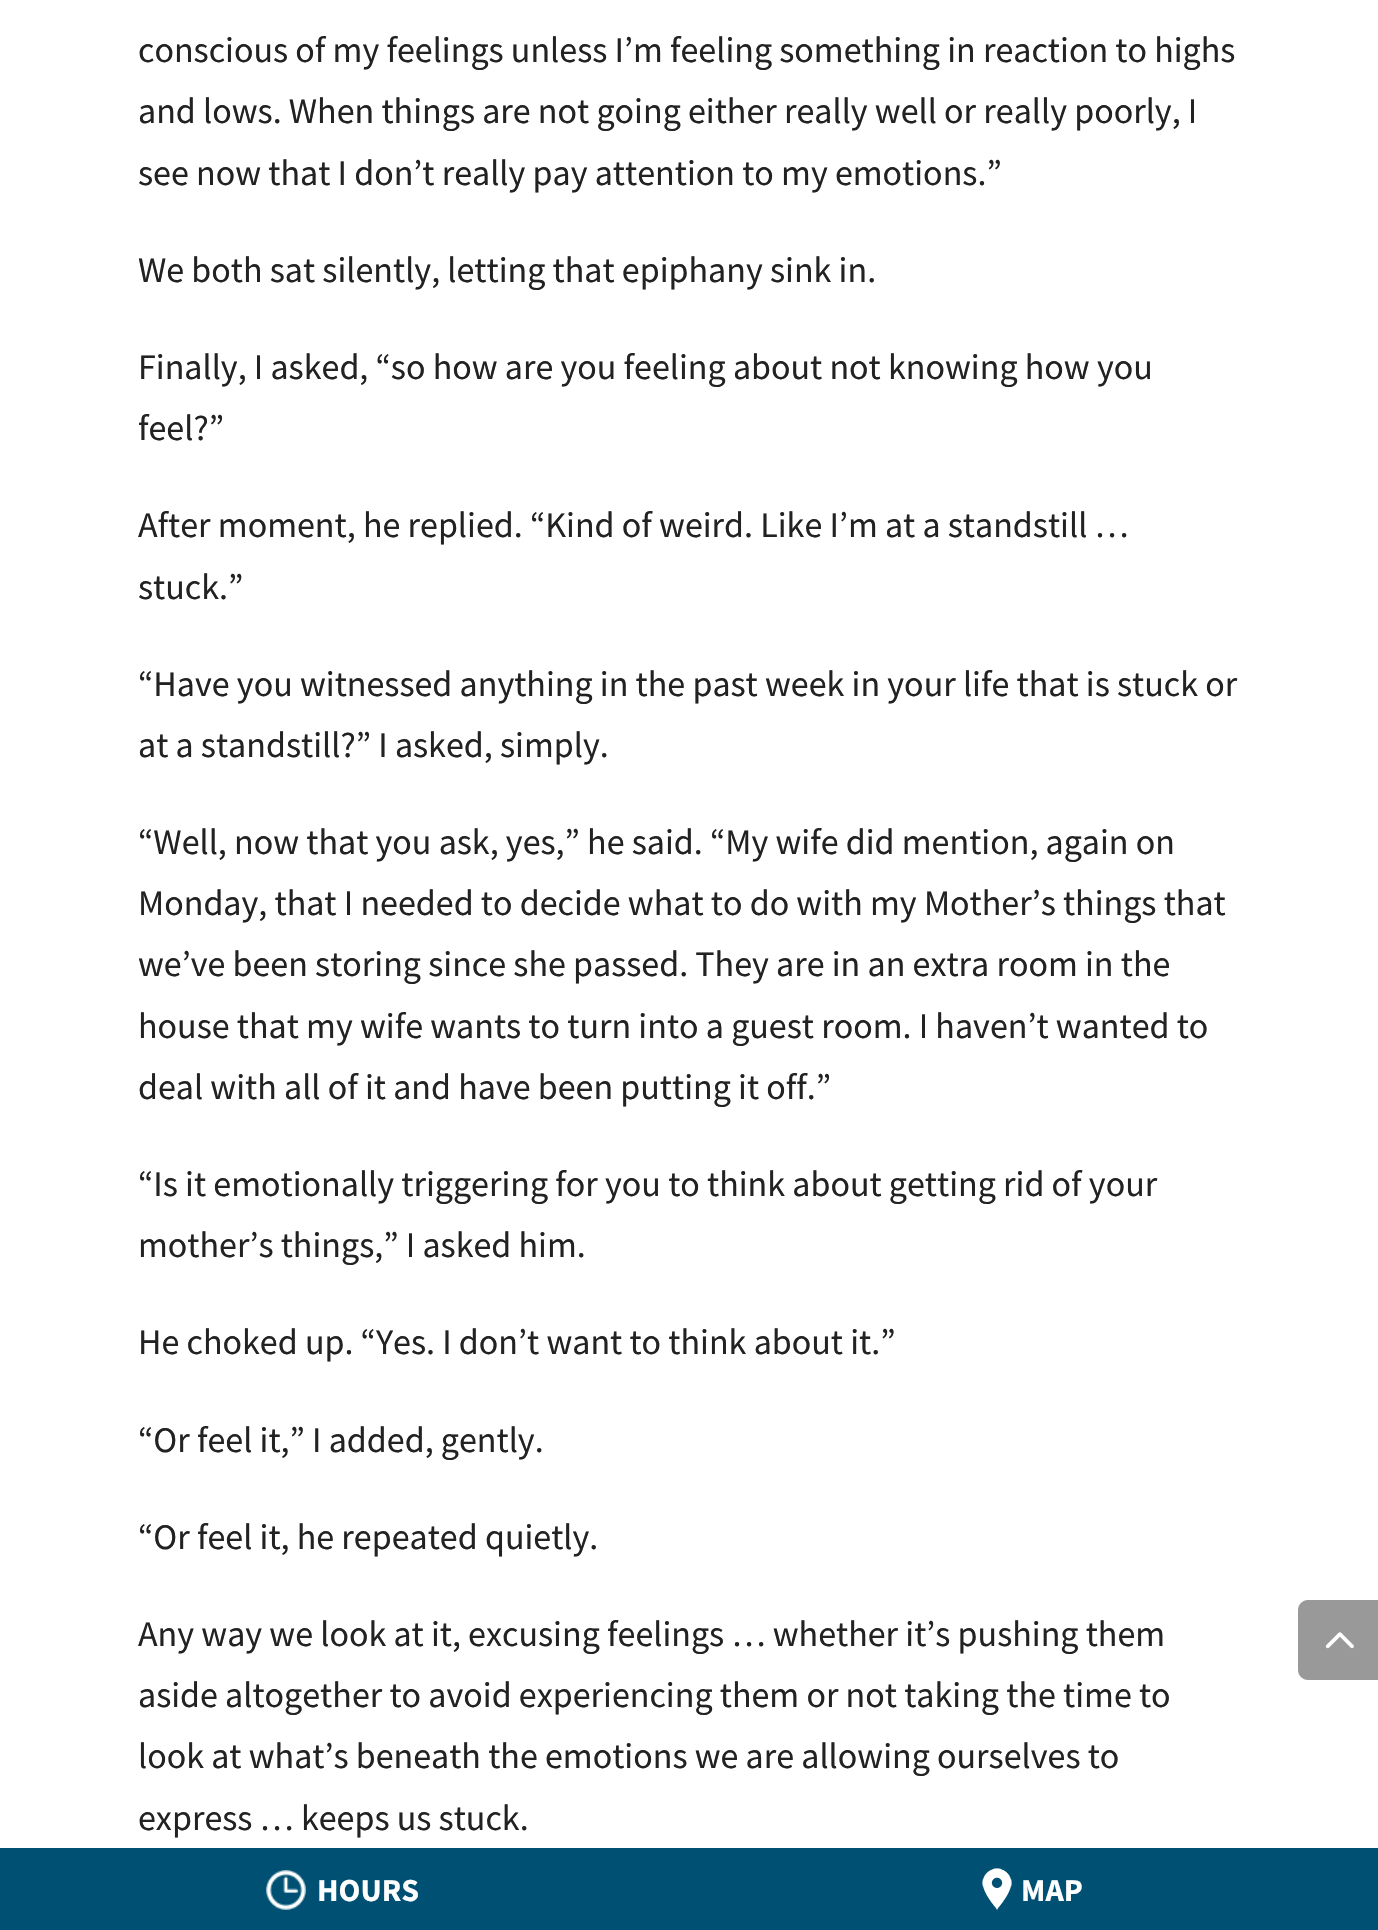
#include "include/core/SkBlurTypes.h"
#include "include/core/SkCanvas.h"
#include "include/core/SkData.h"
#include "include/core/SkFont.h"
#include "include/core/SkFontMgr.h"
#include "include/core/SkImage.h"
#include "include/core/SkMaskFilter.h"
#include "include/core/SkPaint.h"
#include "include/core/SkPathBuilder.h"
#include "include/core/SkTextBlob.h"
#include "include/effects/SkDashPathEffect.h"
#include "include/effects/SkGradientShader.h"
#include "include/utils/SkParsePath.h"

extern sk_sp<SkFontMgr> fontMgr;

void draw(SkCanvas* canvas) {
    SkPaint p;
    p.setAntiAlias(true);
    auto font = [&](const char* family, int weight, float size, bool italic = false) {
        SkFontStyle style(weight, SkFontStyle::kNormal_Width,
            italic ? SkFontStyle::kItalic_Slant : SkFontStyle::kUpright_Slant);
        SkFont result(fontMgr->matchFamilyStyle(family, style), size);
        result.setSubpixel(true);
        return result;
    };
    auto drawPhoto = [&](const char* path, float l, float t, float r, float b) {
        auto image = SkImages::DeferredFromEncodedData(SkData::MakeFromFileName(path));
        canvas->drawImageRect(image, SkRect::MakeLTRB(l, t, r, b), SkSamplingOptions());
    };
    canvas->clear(0xFFFFFFFF);
    auto font1 = font("Source Sans Pro", 400, 36);
    p.setColor(0xFF222222);
    {
        const struct { const char* s; float x, y; } items[] = {
            {"conscious of my feelings unless I’m feeling something in reaction to highs", 138, 62},
            {"and lows. When things are not going either really well or really poorly, I", 138, 123},
            {"see now that I don’t really pay attention to my emotions.”", 138, 185},
            {"We both sat silently, letting that epiphany sink in.", 138, 282},
            {"Finally, I asked, “so how are you feeling about not knowing how you", 138, 379},
            {"feel?”", 138, 440},
            {"After moment, he replied. “Kind of weird. Like I’m at a standstill …", 138, 537},
            {"stuck.”", 138, 599},
            {"“Have you witnessed anything in the past week in your life that is stuck or", 138, 696},
            {"at a standstill?” I asked, simply.", 138, 757},
            {"“Well, now that you ask, yes,” he said. “My wife did mention, again on", 138, 854},
            {"Monday, that I needed to decide what to do with my Mother’s things that", 138, 915},
            {"we’ve been storing since she passed. They are in an extra room in the", 138, 976},
            {"house that my wife wants to turn into a guest room. I haven’t wanted to", 138, 1038},
            {"deal with all of it and have been putting it off.”", 138, 1099},
            {"“Is it emotionally triggering for you to think about getting rid of your", 138, 1196},
            {"mother’s things,” I asked him.", 138, 1257},
            {"He choked up. “Yes. I don’t want to think about it.”", 138, 1354},
            {"“Or feel it,” I added, gently.", 138, 1452},
            {"“Or feel it, he repeated quietly.", 138, 1549},
            {"Any way we look at it, excusing feelings … whether it’s pushing them", 138, 1646},
            {"aside altogether to avoid experiencing them or not taking the time to", 138, 1707},
            {"look at what’s beneath the emotions we are allowing ourselves to", 138, 1768},
            {"express … keeps us stuck.", 138, 1830},
        };
        for (auto [s, x, y] : items) {
            canvas->drawString(s, x, y, font1, p);
        }
    }
    p.setColor(0xFF999999);
    canvas->drawPath(SkPathBuilder().moveTo(1308, 1600).lineTo(1378, 1600).lineTo(1378, 1680).lineTo(1308, 1680).cubicTo(1302.5f, 1680, 1298, 1675.5f, 1298, 1670).lineTo(1298, 1610).cubicTo(1298, 1604.5f, 1302.5f, 1600, 1308, 1600).close().detach(), p);
    drawPhoto("media/1.png", 1325, 1632, 1354, 1649);
    p.setColor(0xFF005073);
    canvas->drawRect(SkRect::MakeLTRB(0, 1848, 1378, 1930), p);
    drawPhoto("media/2.png", 266, 1870, 306, 1910);
    auto font2 = font("Source Sans Pro", 700, 32);
    p.setColor(0xFFFFFFFF);
    canvas->drawString("HOURS", 317, 1901, font2, p);
    drawPhoto("media/3.png", 982, 1868, 1012, 1910);
    canvas->drawString("MAP", 1021, 1901, font2, p);
}
